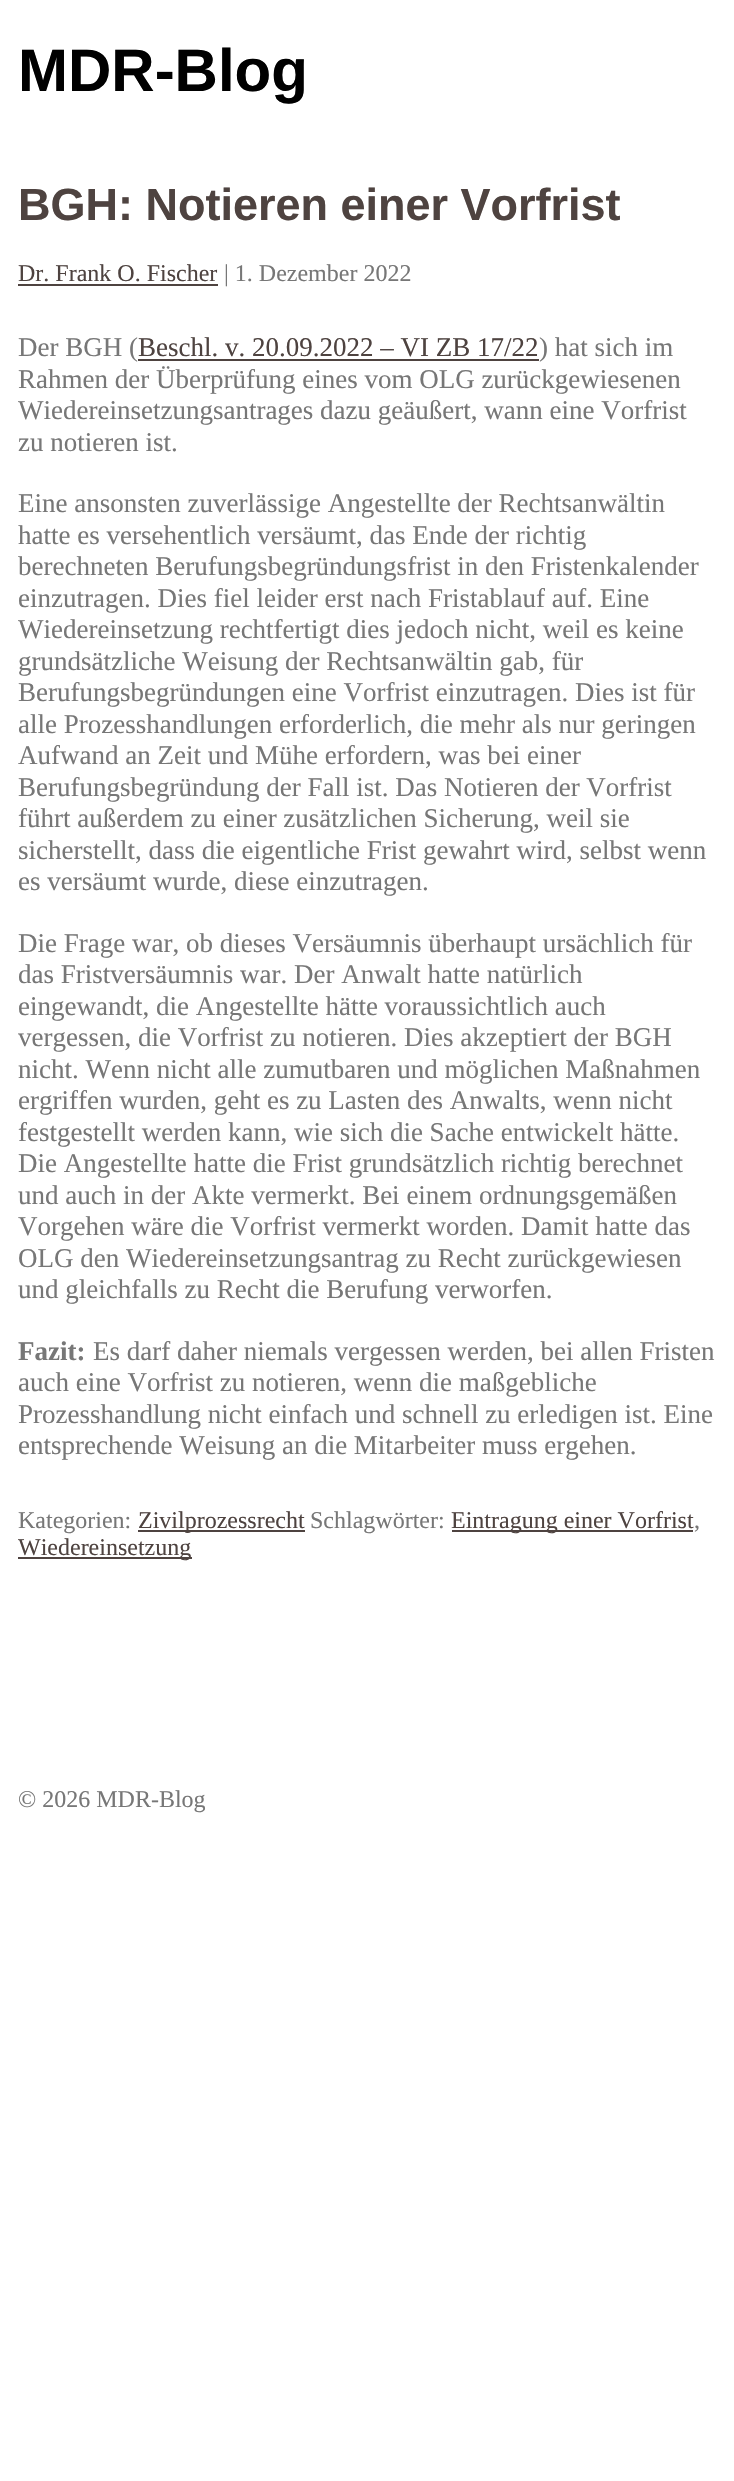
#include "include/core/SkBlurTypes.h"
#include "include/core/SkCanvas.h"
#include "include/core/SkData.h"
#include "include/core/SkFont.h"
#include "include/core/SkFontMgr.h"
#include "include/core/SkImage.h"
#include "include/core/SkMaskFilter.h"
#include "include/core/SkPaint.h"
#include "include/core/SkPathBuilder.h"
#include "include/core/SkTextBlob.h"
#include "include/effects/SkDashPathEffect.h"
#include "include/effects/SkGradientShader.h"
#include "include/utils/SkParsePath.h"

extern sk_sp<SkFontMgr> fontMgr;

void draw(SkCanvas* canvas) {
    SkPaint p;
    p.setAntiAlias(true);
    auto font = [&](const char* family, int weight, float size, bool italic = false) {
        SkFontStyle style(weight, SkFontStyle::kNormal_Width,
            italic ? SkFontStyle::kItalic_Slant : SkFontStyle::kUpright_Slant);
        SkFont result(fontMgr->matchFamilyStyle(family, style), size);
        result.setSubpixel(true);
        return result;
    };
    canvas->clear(0xFFFFFFFF);
    auto font1 = font("Liberation Sans", 700, 60);
    p.setColor(0xFF000000);
    canvas->drawString("MDR-Blog", 18, 91, font1, p);
    auto font2 = font("Liberation Sans", 700, 45);
    p.setColor(0xFF4E4340);
    canvas->drawString("BGH: Notieren einer Vorfrist", 18, 220, font2, p);
    auto font3 = font("Liberation Serif", 400, 24);
    canvas->drawString("Dr. Frank O. Fischer", 18, 281, font3, p);
    canvas->drawRect(SkRect::MakeLTRB(18, 284, 218, 286), p);
    p.setColor(0xFF777777);
    canvas->drawString("| 1. Dezember 2022", 224, 281, font3, p);
    auto font4 = font("Liberation Serif", 400, 27);
    canvas->drawString("Der BGH (", 18, 356, font4, p);
    p.setColor(0xFF4E4340);
    canvas->drawString("Beschl. v. 20.09.2022 – VI ZB 17/22", 138, 356, font4, p);
    canvas->drawRect(SkRect::MakeLTRB(138, 359, 539, 361), p);
    p.setColor(0xFF777777);
    {
        const struct { const char* s; float x, y; } items[] = {
            {") hat sich im", 539, 356},
            {"Rahmen der Überprüfung eines vom OLG zurückgewiesenen", 18, 388},
            {"Wiedereinsetzungsantrages dazu geäußert, wann eine Vorfrist", 18, 419},
            {"zu notieren ist.", 18, 451},
            {"Eine ansonsten zuverlässige Angestellte der Rechtsanwältin", 18, 512},
            {"hatte es versehentlich versäumt, das Ende der richtig", 18, 544},
            {"berechneten Berufungsbegründungsfrist in den Fristenkalender", 18, 575},
            {"einzutragen. Dies fiel leider erst nach Fristablauf auf. Eine", 18, 607},
            {"Wiedereinsetzung rechtfertigt dies jedoch nicht, weil es keine", 18, 638},
            {"grundsätzliche Weisung der Rechtsanwältin gab, für", 18, 670},
            {"Berufungsbegründungen eine Vorfrist einzutragen. Dies ist für", 18, 701},
            {"alle Prozesshandlungen erforderlich, die mehr als nur geringen", 18, 733},
            {"Aufwand an Zeit und Mühe erfordern, was bei einer", 18, 764},
            {"Berufungsbegründung der Fall ist. Das Notieren der Vorfrist", 18, 796},
            {"führt außerdem zu einer zusätzlichen Sicherung, weil sie", 18, 827},
            {"sicherstellt, dass die eigentliche Frist gewahrt wird, selbst wenn", 18, 859},
            {"es versäumt wurde, diese einzutragen.", 18, 890},
            {"Die Frage war, ob dieses Versäumnis überhaupt ursächlich für", 18, 952},
            {"das Fristversäumnis war. Der Anwalt hatte natürlich", 18, 983},
            {"eingewandt, die Angestellte hätte voraussichtlich auch", 18, 1015},
            {"vergessen, die Vorfrist zu notieren. Dies akzeptiert der BGH", 18, 1046},
            {"nicht. Wenn nicht alle zumutbaren und möglichen Maßnahmen", 18, 1078},
            {"ergriffen wurden, geht es zu Lasten des Anwalts, wenn nicht", 18, 1109},
            {"festgestellt werden kann, wie sich die Sache entwickelt hätte.", 18, 1141},
            {"Die Angestellte hatte die Frist grundsätzlich richtig berechnet", 18, 1172},
            {"und auch in der Akte vermerkt. Bei einem ordnungsgemäßen", 18, 1204},
            {"Vorgehen wäre die Vorfrist vermerkt worden. Damit hatte das", 18, 1235},
            {"OLG den Wiedereinsetzungsantrag zu Recht zurückgewiesen", 18, 1267},
            {"und gleichfalls zu Recht die Berufung verworfen.", 18, 1298},
        };
        for (auto [s, x, y] : items) {
            canvas->drawString(s, x, y, font4, p);
        }
    }
    auto font5 = font("Liberation Serif", 700, 27);
    canvas->drawString("Fazit:", 18, 1360, font5, p);
    {
        const struct { const char* s; float x, y; } items[] = {
            {"Es darf daher niemals vergessen werden, bei allen Fristen", 93, 1360},
            {"auch eine Vorfrist zu notieren, wenn die maßgebliche", 18, 1391},
            {"Prozesshandlung nicht einfach und schnell zu erledigen ist. Eine", 18, 1423},
            {"entsprechende Weisung an die Mitarbeiter muss ergehen.", 18, 1454},
        };
        for (auto [s, x, y] : items) {
            canvas->drawString(s, x, y, font4, p);
        }
    }
    canvas->drawString("Kategorien:", 18, 1528, font3, p);
    p.setColor(0xFF4E4340);
    canvas->drawRect(SkRect::MakeLTRB(138, 1530, 305, 1532), p);
    canvas->drawString("Zivilprozessrecht", 138, 1528, font3, p);
    p.setColor(0xFF777777);
    canvas->drawString("Schlagwörter:", 310, 1528, font3, p);
    p.setColor(0xFF4E4340);
    canvas->drawRect(SkRect::MakeLTRB(452, 1530, 693, 1532), p);
    canvas->drawString("Eintragung einer Vorfrist", 451, 1528, font3, p);
    p.setColor(0xFF777777);
    canvas->drawString(",", 694, 1528, font3, p);
    p.setColor(0xFF4E4340);
    canvas->drawRect(SkRect::MakeLTRB(18, 1557, 192, 1559), p);
    canvas->drawString("Wiedereinsetzung", 18, 1555, font3, p);
    p.setColor(0xFF777777);
    canvas->drawString("© 2026 MDR-Blog", 18, 1807, font3, p);
}
